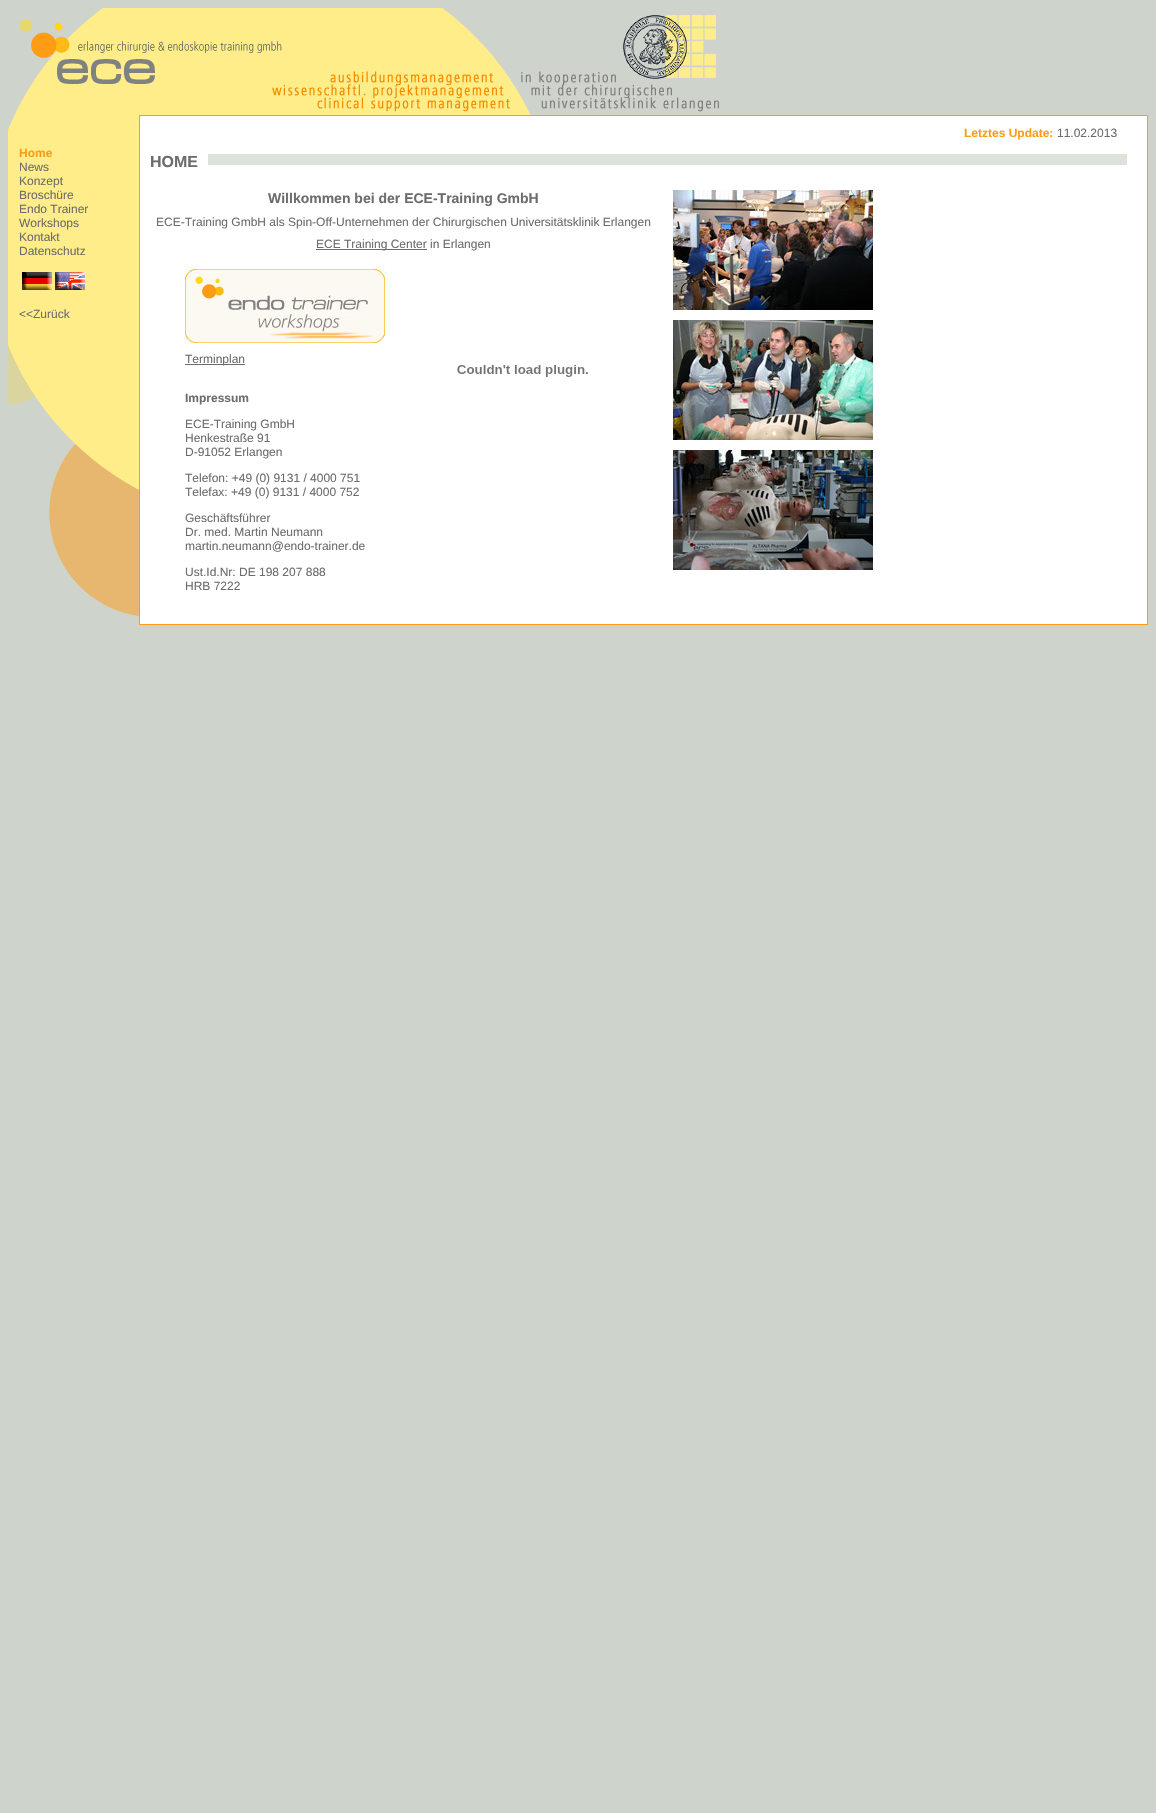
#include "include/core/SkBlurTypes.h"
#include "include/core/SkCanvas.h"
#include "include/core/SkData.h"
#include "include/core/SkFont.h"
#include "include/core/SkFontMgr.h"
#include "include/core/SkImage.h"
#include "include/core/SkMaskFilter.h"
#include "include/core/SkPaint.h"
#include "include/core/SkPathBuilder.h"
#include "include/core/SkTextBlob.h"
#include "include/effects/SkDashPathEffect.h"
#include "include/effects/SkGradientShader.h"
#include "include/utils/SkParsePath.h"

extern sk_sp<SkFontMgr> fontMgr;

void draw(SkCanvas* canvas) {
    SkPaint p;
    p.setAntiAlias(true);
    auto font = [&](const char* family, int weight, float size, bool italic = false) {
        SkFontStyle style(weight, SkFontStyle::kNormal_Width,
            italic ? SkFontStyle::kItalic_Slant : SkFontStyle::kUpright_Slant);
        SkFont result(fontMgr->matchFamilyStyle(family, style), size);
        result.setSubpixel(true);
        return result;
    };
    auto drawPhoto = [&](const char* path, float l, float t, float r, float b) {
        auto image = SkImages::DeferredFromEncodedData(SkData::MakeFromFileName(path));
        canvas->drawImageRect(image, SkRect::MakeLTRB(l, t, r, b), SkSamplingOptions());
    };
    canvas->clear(0xFFCED3CC);
    drawPhoto("media/1.png", 14, 8, 719, 115);
    drawPhoto("media/2.png", 8, 115, 139, 616);
    auto font1 = font("Liberation Sans", 700, 12);
    p.setColor(0xFFFF9C15);
    canvas->drawString("Home", 19, 157, font1, p);
    auto font2 = font("Liberation Sans", 400, 12);
    p.setColor(0xFF6C6C6C);
    {
        const struct { const char* s; float x, y; } items[] = {
            {"News", 19, 171},
            {"Konzept", 19, 185},
            {"Broschüre", 19, 199},
            {"Endo Trainer", 19, 213},
            {"Workshops", 19, 227},
            {"Kontakt", 19, 241},
            {"Datenschutz", 19, 255},
        };
        for (auto [s, x, y] : items) {
            canvas->drawString(s, x, y, font2, p);
        }
    }
    drawPhoto("media/3.png", 22, 272, 52, 290);
    drawPhoto("media/4.png", 55, 272, 85, 290);
    canvas->drawString("<<Zurück", 19, 318, font2, p);
    {
        const struct { float l, t, r, b; SkColor color; } items[] = {
            {140, 116, 1147, 624, 0xFFFFFFFF},
            {139, 115, 1148, 116, 0xFFFF9C15},
            {139, 116, 140, 624, 0xFFFF9C15},
        };
        for (auto [l, t, r, b, color] : items) {
            p.setColor(color);
            canvas->drawRect(SkRect::MakeLTRB(l, t, r, b), p);
        }
    }
    canvas->drawString("Letztes Update:", 964, 137, font1, p);
    p.setColor(0xFF6C6C6C);
    canvas->drawString("11.02.2013", 1057, 137, font2, p);
    auto font3 = font("Liberation Sans", 700, 16);
    canvas->drawString("HOME", 150, 167, font3, p);
    p.setColor(0xFFDDE2DB);
    canvas->drawRect(SkRect::MakeLTRB(208, 154, 1127, 165), p);
    auto font4 = font("Liberation Sans", 700, 14);
    p.setColor(0xFF6C6C6C);
    canvas->drawString("Willkommen bei der ECE-Training GmbH", 268, 203, font4, p);
    canvas->drawString("ECE-Training GmbH als Spin-Off-Unternehmen der Chirurgischen Universitätsklinik Erlangen", 156, 226, font2, p);
    canvas->drawRect(SkRect::MakeLTRB(316, 249, 427, 250), p);
    canvas->drawString("ECE Training Center in Erlangen", 316, 248, font2, p);
    drawPhoto("media/5.png", 185, 269, 385, 343);
    canvas->drawRect(SkRect::MakeLTRB(185, 364, 245, 365), p);
    canvas->drawString("Terminplan", 185, 363, font2, p);
    canvas->drawString("Impressum", 185, 402, font1, p);
    {
        const struct { const char* s; float x, y; } items[] = {
            {"ECE-Training GmbH", 185, 428},
            {"Henkestraße 91", 185, 442},
            {"D-91052 Erlangen", 185, 456},
            {"Telefon: +49 (0) 9131 / 4000 751", 185, 482},
            {"Telefax: +49 (0) 9131 / 4000 752", 185, 496},
            {"Geschäftsführer", 185, 522},
            {"Dr. med. Martin Neumann", 185, 536},
            {"martin.neumann@endo-trainer.de", 185, 550},
            {"Ust.Id.Nr: DE 198 207 888", 185, 576},
            {"HRB 7222", 185, 590},
        };
        for (auto [s, x, y] : items) {
            canvas->drawString(s, x, y, font2, p);
        }
    }
    drawPhoto("media/6.png", 457, 365, 588, 377);
    drawPhoto("media/7.png", 673, 190, 873, 310);
    drawPhoto("media/8.png", 673, 320, 873, 440);
    drawPhoto("media/9.png", 673, 450, 873, 570);
    p.setColor(0xFFFF9C15);
    canvas->drawRect(SkRect::MakeLTRB(1147, 116, 1148, 624), p);
    canvas->drawRect(SkRect::MakeLTRB(139, 624, 1148, 625), p);
}
